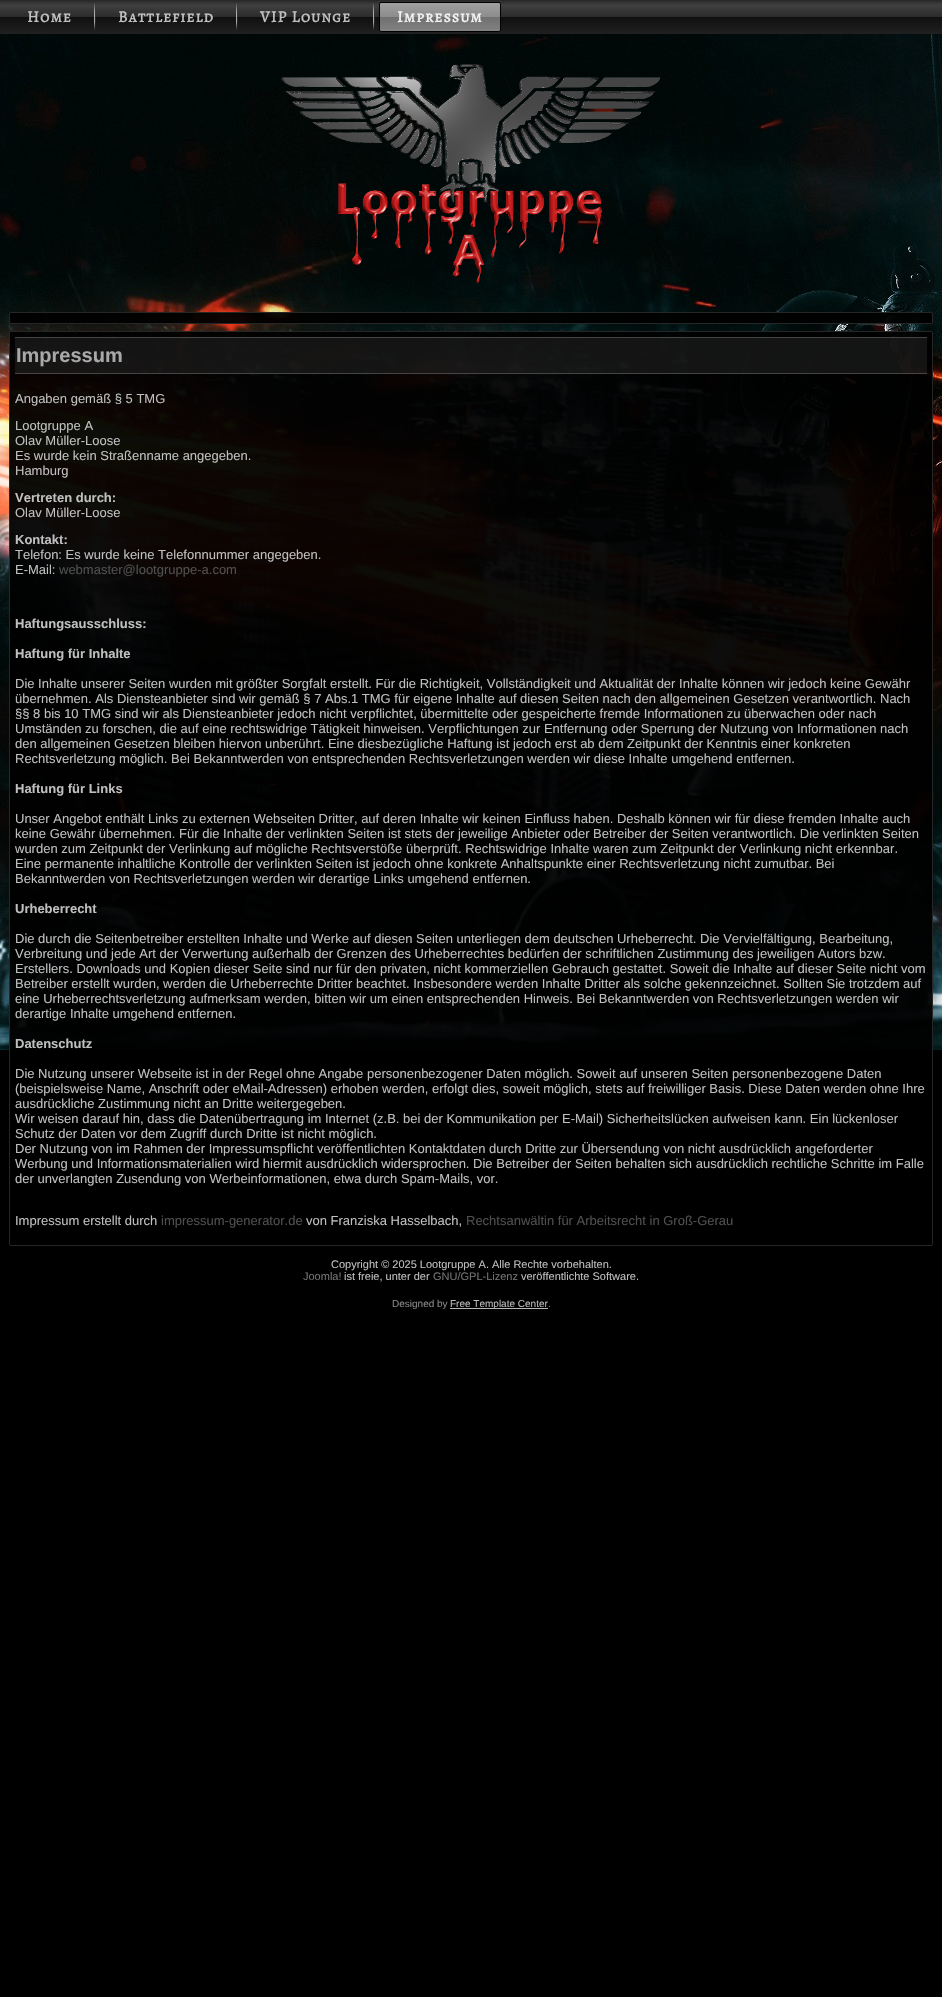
#include "include/core/SkBlurTypes.h"
#include "include/core/SkCanvas.h"
#include "include/core/SkData.h"
#include "include/core/SkFont.h"
#include "include/core/SkFontMgr.h"
#include "include/core/SkImage.h"
#include "include/core/SkMaskFilter.h"
#include "include/core/SkPaint.h"
#include "include/core/SkPathBuilder.h"
#include "include/core/SkTextBlob.h"
#include "include/effects/SkDashPathEffect.h"
#include "include/effects/SkGradientShader.h"
#include "include/utils/SkParsePath.h"

extern sk_sp<SkFontMgr> fontMgr;

void draw(SkCanvas* canvas) {
    SkPaint p;
    p.setAntiAlias(true);
    auto font = [&](const char* family, int weight, float size, bool italic = false) {
        SkFontStyle style(weight, SkFontStyle::kNormal_Width,
            italic ? SkFontStyle::kItalic_Slant : SkFontStyle::kUpright_Slant);
        SkFont result(fontMgr->matchFamilyStyle(family, style), size);
        result.setSubpixel(true);
        return result;
    };
    auto drawTracked = [&](const char* s, float x, float y, const SkFont& font, const SkPaint& ink, float letter, float word) {
        std::vector<SkGlyphID> glyphs(font.countText(s, strlen(s), SkTextEncoding::kUTF8));
        std::vector<float> xs(glyphs.size());
        font.textToGlyphs(s, strlen(s), SkTextEncoding::kUTF8, glyphs);
        font.getXPos(glyphs, xs, x);
        float extra = 0;
        for (size_t i = 0; i < glyphs.size(); i++) {
            xs[i] += extra;
            extra += letter + word * (glyphs[i] == font.unicharToGlyph(' '));
        }
        canvas->drawTextBlob(SkTextBlob::MakeFromPosHGlyphs(glyphs, xs, y, font), 0, 0, ink);
    };
    auto drawPhoto = [&](const char* path, float l, float t, float r, float b) {
        auto image = SkImages::DeferredFromEncodedData(SkData::MakeFromFileName(path));
        canvas->drawImageRect(image, SkRect::MakeLTRB(l, t, r, b), SkSamplingOptions());
    };
    canvas->clear(0xFF000000);
    drawPhoto("media/1.png", 0, 34, 942, 1050);
    {
        const SkColor colors[] = {0xFF262626, 0xFF404040, 0xFF2B2B2B, 0xFF0F0F0F, 0xFF212121};
        const float stops[] = {0, 0.15f, 0.5f, 0.5f, 1};
        const SkPoint ends[] = {{471, 0}, {471, 34}};
        p.setShader(SkGradientShader::MakeLinear(ends, colors, stops, 5, SkTileMode::kClamp));
        p.setAlpha(255);
    }
    canvas->drawRect(SkRect::MakeLTRB(0, 0, 942, 34), p);
    auto font1 = font("Alegreya SC", 700, 16);
    p.setShader(nullptr);
    p.setColor(0xFFBFBFBF);
    drawTracked("Home", 27, 22, font1, p, 1, 0);
    drawPhoto("media/2.png", 94, 3, 96, 30);
    drawTracked("Battlefield", 118, 22, font1, p, 1, 0);
    drawPhoto("media/2.png", 236, 3, 238, 30);
    drawTracked("VIP Lounge", 260, 22, font1, p, 1, 0);
    drawPhoto("media/2.png", 373, 3, 375, 30);
    {
        const SkColor colors[] = {0xFFA1A1A1, 0xFF8C8C8C, 0xFF808080, 0xFF707070, 0xFF808080, 0xFF828282};
        const float stops[] = {0, 0.5f, 0.5f, 0.5f, 0.93f, 1};
        const SkPoint ends[] = {{440, 2}, {440, 32}};
        p.setShader(SkGradientShader::MakeLinear(ends, colors, stops, 6, SkTileMode::kClamp));
        p.setAlpha(255);
    }
    canvas->drawRoundRect(SkRect::MakeLTRB(379.5f, 2.5f, 500.5f, 31.5f), 1.5f, 1.5f, p);
    p.setStyle(SkPaint::kStroke_Style);
    p.setStrokeWidth(1);
    p.setShader(nullptr);
    p.setColor(0xFF000000);
    canvas->drawRoundRect(SkRect::MakeLTRB(379.5f, 2.5f, 500.5f, 31.5f), 1.5f, 1.5f, p);
    p.setStyle(SkPaint::kFill_Style);
    p.setColor(0xFFF0F0F0);
    drawTracked("Impressum", 397, 22, font1, p, 1, 0);
    drawPhoto("media/3.png", 281, 64, 660, 284);
    p.setColor(0xF2000000);
    canvas->drawRoundRect(SkRect::MakeLTRB(9.5f, 312.5f, 932.5f, 323.5f), 1.5f, 1.5f, p);
    p.setStyle(SkPaint::kStroke_Style);
    p.setColor(0xFF262626);
    canvas->drawRoundRect(SkRect::MakeLTRB(9.5f, 312.5f, 932.5f, 323.5f), 1.5f, 1.5f, p);
    p.setStyle(SkPaint::kFill_Style);
    p.setColor(0xF2000000);
    canvas->drawRoundRect(SkRect::MakeLTRB(9.5f, 331.5f, 932.5f, 1245.5f), 1.5f, 1.5f, p);
    p.setStyle(SkPaint::kStroke_Style);
    p.setColor(0xFF262626);
    canvas->drawRoundRect(SkRect::MakeLTRB(9.5f, 331.5f, 932.5f, 1245.5f), 1.5f, 1.5f, p);
    p.setStyle(SkPaint::kFill_Style);
    {
        const struct { float l, t, r, b; SkColor color; } items[] = {
            {15, 338, 927, 373, 0x80262626},
            {15, 337, 927, 338, 0xFF454545},
            {15, 373, 927, 374, 0xFF454545},
        };
        for (auto [l, t, r, b, color] : items) {
            p.setColor(color);
            canvas->drawRect(SkRect::MakeLTRB(l, t, r, b), p);
        }
    }
    auto font2 = font("Liberation Sans", 700, 20);
    p.setColor(0xFFA8A8A8);
    canvas->drawString("Impressum", 16, 362, font2, p);
    auto font3 = font("Liberation Sans", 400, 13);
    p.setColor(0xFFBFBFBF);
    {
        const struct { const char* s; float x, y; } items[] = {
            {"Angaben gemäß § 5 TMG", 15, 403},
            {"Lootgruppe A", 15, 430},
            {"Olav Müller-Loose", 15, 445},
            {"Es wurde kein Straßenname angegeben.", 15, 460},
            {"Hamburg", 15, 475},
        };
        for (auto [s, x, y] : items) {
            canvas->drawString(s, x, y, font3, p);
        }
    }
    auto font4 = font("Liberation Sans", 700, 13);
    canvas->drawString("Vertreten durch:", 15, 502, font4, p);
    canvas->drawString("Olav Müller-Loose", 15, 517, font3, p);
    canvas->drawString("Kontakt:", 15, 544, font4, p);
    canvas->drawString("Telefon: Es wurde keine Telefonnummer angegeben.", 15, 559, font3, p);
    canvas->drawString("E-Mail:", 15, 574, font3, p);
    p.setColor(0xFF4F4F4F);
    canvas->drawString("webmaster@lootgruppe-a.com", 59, 574, font3, p);
    p.setColor(0xFFBFBFBF);
    canvas->drawString("Haftungsausschluss:", 15, 628, font4, p);
    canvas->drawString("Haftung für Inhalte", 15, 658, font4, p);
    {
        const struct { const char* s; float x, y; } items[] = {
            {"Die Inhalte unserer Seiten wurden mit größter Sorgfalt erstellt. Für die Richtigkeit, Vollständigkeit und Aktualität der Inhalte können wir jedoch keine Gewähr", 15, 688},
            {"übernehmen. Als Diensteanbieter sind wir gemäß § 7 Abs.1 TMG für eigene Inhalte auf diesen Seiten nach den allgemeinen Gesetzen verantwortlich. Nach", 15, 703},
            {"§§ 8 bis 10 TMG sind wir als Diensteanbieter jedoch nicht verpflichtet, übermittelte oder gespeicherte fremde Informationen zu überwachen oder nach", 15, 718},
            {"Umständen zu forschen, die auf eine rechtswidrige Tätigkeit hinweisen. Verpflichtungen zur Entfernung oder Sperrung der Nutzung von Informationen nach", 15, 733},
            {"den allgemeinen Gesetzen bleiben hiervon unberührt. Eine diesbezügliche Haftung ist jedoch erst ab dem Zeitpunkt der Kenntnis einer konkreten", 15, 748},
            {"Rechtsverletzung möglich. Bei Bekanntwerden von entsprechenden Rechtsverletzungen werden wir diese Inhalte umgehend entfernen.", 15, 763},
        };
        for (auto [s, x, y] : items) {
            canvas->drawString(s, x, y, font3, p);
        }
    }
    canvas->drawString("Haftung für Links", 15, 793, font4, p);
    {
        const struct { const char* s; float x, y; } items[] = {
            {"Unser Angebot enthält Links zu externen Webseiten Dritter, auf deren Inhalte wir keinen Einfluss haben. Deshalb können wir für diese fremden Inhalte auch", 15, 823},
            {"keine Gewähr übernehmen. Für die Inhalte der verlinkten Seiten ist stets der jeweilige Anbieter oder Betreiber der Seiten verantwortlich. Die verlinkten Seiten", 15, 838},
            {"wurden zum Zeitpunkt der Verlinkung auf mögliche Rechtsverstöße überprüft. Rechtswidrige Inhalte waren zum Zeitpunkt der Verlinkung nicht erkennbar.", 15, 853},
            {"Eine permanente inhaltliche Kontrolle der verlinkten Seiten ist jedoch ohne konkrete Anhaltspunkte einer Rechtsverletzung nicht zumutbar. Bei", 15, 868},
            {"Bekanntwerden von Rechtsverletzungen werden wir derartige Links umgehend entfernen.", 15, 883},
        };
        for (auto [s, x, y] : items) {
            canvas->drawString(s, x, y, font3, p);
        }
    }
    canvas->drawString("Urheberrecht", 15, 913, font4, p);
    {
        const struct { const char* s; float x, y; } items[] = {
            {"Die durch die Seitenbetreiber erstellten Inhalte und Werke auf diesen Seiten unterliegen dem deutschen Urheberrecht. Die Vervielfältigung, Bearbeitung,", 15, 943},
            {"Verbreitung und jede Art der Verwertung außerhalb der Grenzen des Urheberrechtes bedürfen der schriftlichen Zustimmung des jeweiligen Autors bzw.", 15, 958},
            {"Erstellers. Downloads und Kopien dieser Seite sind nur für den privaten, nicht kommerziellen Gebrauch gestattet. Soweit die Inhalte auf dieser Seite nicht vom", 15, 973},
            {"Betreiber erstellt wurden, werden die Urheberrechte Dritter beachtet. Insbesondere werden Inhalte Dritter als solche gekennzeichnet. Sollten Sie trotzdem auf", 15, 988},
            {"eine Urheberrechtsverletzung aufmerksam werden, bitten wir um einen entsprechenden Hinweis. Bei Bekanntwerden von Rechtsverletzungen werden wir", 15, 1003},
            {"derartige Inhalte umgehend entfernen.", 15, 1018},
        };
        for (auto [s, x, y] : items) {
            canvas->drawString(s, x, y, font3, p);
        }
    }
    canvas->drawString("Datenschutz", 15, 1048, font4, p);
    {
        const struct { const char* s; float x, y; } items[] = {
            {"Die Nutzung unserer Webseite ist in der Regel ohne Angabe personenbezogener Daten möglich. Soweit auf unseren Seiten personenbezogene Daten", 15, 1078},
            {"(beispielsweise Name, Anschrift oder eMail-Adressen) erhoben werden, erfolgt dies, soweit möglich, stets auf freiwilliger Basis. Diese Daten werden ohne Ihre", 15, 1093},
            {"ausdrückliche Zustimmung nicht an Dritte weitergegeben.", 15, 1108},
            {"Wir weisen darauf hin, dass die Datenübertragung im Internet (z.B. bei der Kommunikation per E-Mail) Sicherheitslücken aufweisen kann. Ein lückenloser", 15, 1123},
            {"Schutz der Daten vor dem Zugriff durch Dritte ist nicht möglich.", 15, 1138},
            {"Der Nutzung von im Rahmen der Impressumspflicht veröffentlichten Kontaktdaten durch Dritte zur Übersendung von nicht ausdrücklich angeforderter", 15, 1153},
            {"Werbung und Informationsmaterialien wird hiermit ausdrücklich widersprochen. Die Betreiber der Seiten behalten sich ausdrücklich rechtliche Schritte im Falle", 15, 1168},
            {"der unverlangten Zusendung von Werbeinformationen, etwa durch Spam-Mails, vor.", 15, 1183},
            {"Impressum erstellt durch", 15, 1225},
        };
        for (auto [s, x, y] : items) {
            canvas->drawString(s, x, y, font3, p);
        }
    }
    p.setColor(0xFF4F4F4F);
    canvas->drawString("impressum-generator.de", 161, 1225, font3, p);
    p.setColor(0xFFBFBFBF);
    canvas->drawString("von Franziska Hasselbach,", 306, 1225, font3, p);
    p.setColor(0xFF4F4F4F);
    canvas->drawString("Rechtsanwältin für Arbeitsrecht in Groß-Gerau", 466, 1225, font3, p);
    auto font5 = font("Liberation Sans", 400, 11);
    p.setColor(0xFFBFBFBF);
    canvas->drawString("Copyright © 2025 Lootgruppe A. Alle Rechte vorbehalten.", 331, 1268, font5, p);
    p.setColor(0xFF737373);
    canvas->drawString("Joomla!", 303, 1280, font5, p);
    p.setColor(0xFFBFBFBF);
    canvas->drawString("ist freie, unter der", 344, 1280, font5, p);
    p.setColor(0xFF737373);
    canvas->drawString("GNU/GPL-Lizenz", 433, 1280, font5, p);
    p.setColor(0xFFBFBFBF);
    canvas->drawString("veröffentlichte Software.", 521, 1280, font5, p);
    auto font6 = font("Liberation Sans", 400, 10);
    p.setColor(0xFF878787);
    canvas->drawString("Designed by", 392, 1307, font6, p);
    p.setColor(0xFFB8B8B8);
    canvas->drawRect(SkRect::MakeLTRB(450, 1308, 548, 1309), p);
    canvas->drawString("Free Template Center", 450, 1307, font6, p);
    p.setColor(0xFF878787);
    canvas->drawString(".", 548, 1307, font6, p);
}
